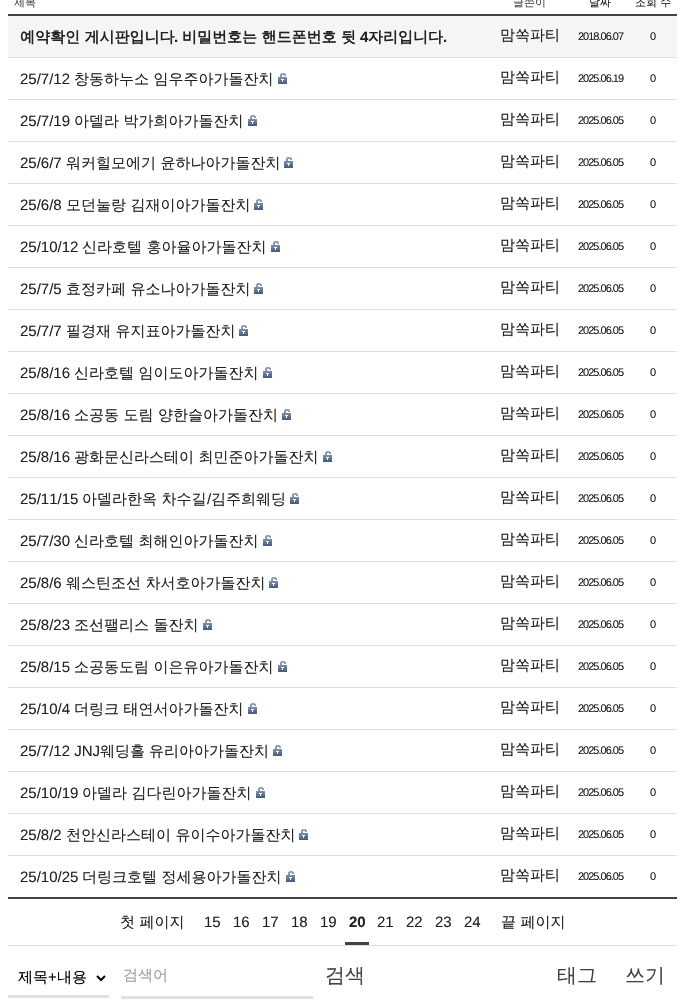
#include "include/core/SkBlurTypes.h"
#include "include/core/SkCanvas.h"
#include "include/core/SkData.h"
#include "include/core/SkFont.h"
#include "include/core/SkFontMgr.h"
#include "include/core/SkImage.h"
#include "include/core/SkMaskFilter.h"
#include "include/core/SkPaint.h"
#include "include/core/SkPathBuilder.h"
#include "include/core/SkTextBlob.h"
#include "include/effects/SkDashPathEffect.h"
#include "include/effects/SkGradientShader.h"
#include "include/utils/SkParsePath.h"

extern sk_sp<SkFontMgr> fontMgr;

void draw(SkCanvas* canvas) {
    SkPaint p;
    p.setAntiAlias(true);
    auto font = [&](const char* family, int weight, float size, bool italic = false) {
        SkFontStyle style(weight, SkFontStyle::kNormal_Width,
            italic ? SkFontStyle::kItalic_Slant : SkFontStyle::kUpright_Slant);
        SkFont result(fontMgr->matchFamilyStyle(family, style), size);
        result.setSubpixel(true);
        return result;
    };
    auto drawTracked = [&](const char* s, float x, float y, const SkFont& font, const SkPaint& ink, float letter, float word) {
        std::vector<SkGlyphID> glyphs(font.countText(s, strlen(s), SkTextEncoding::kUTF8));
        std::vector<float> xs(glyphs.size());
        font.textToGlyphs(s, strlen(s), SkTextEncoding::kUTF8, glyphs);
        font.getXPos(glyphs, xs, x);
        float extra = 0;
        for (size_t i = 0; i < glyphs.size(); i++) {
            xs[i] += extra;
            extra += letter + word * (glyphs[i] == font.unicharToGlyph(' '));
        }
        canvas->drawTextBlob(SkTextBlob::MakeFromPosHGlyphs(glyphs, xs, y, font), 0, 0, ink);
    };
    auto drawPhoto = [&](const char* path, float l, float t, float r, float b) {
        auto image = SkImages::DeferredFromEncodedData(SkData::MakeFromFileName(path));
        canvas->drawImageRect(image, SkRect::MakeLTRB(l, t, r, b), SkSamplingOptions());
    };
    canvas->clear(0xFFFFFFFF);
    p.setColor(0xFF424242);
    canvas->drawRect(SkRect::MakeLTRB(8, 897, 677, 899), p);
    canvas->drawRect(SkRect::MakeLTRB(8, 14, 677, 16), p);
    auto font1 = font("WenQuanYi Zen Hei", 500, 11);
    canvas->drawString("제목", 14, 6, font1, p);
    canvas->drawString("글쓴이", 513, 6, font1, p);
    p.setColor(0xFF212121);
    canvas->drawString("날짜", 589, 6, font1, p);
    canvas->drawString("조회 수", 635, 6, font1, p);
    p.setColor(0xFFF5F5F5);
    canvas->drawRect(SkRect::MakeLTRB(8, 16, 677, 57), p);
    p.setColor(0xFFE0E0E0);
    canvas->drawRect(SkRect::MakeLTRB(8, 57, 677, 58), p);
    auto font2 = font("WenQuanYi Zen Hei", 700, 15);
    p.setColor(0xFF212121);
    canvas->drawString("예약확인 게시판입니다", 20, 42, font2, p);
    auto font3 = font("Liberation Sans", 700, 15);
    canvas->drawString(".", 174, 42, font3, p);
    canvas->drawString("비밀번호는 핸드폰번호 뒷", 182, 42, font2, p);
    canvas->drawString("4", 360, 42, font3, p);
    canvas->drawString("자리입니다", 368, 42, font2, p);
    canvas->drawString(".", 443, 42, font3, p);
    auto font4 = font("WenQuanYi Zen Hei", 500, 15);
    canvas->drawString("맘쏙파티", 500, 40, font4, p);
    auto font5 = font("Liberation Sans", 400, 11);
    drawTracked("2018.06.07", 578, 40, font5, p, -1, 0);
    drawTracked("0", 650, 40, font5, p, -1, 0);
    p.setColor(0xFFE0E0E0);
    canvas->drawRect(SkRect::MakeLTRB(8, 99, 677, 100), p);
    auto font6 = font("Liberation Sans", 400, 15);
    p.setColor(0xFF212121);
    canvas->drawString("25/7/12", 20, 84, font6, p);
    canvas->drawString("창동하누소 임우주아가돌잔치", 74, 84, font4, p);
    drawPhoto("media/1.png", 278, 73, 287, 84);
    canvas->drawString("맘쏙파티", 500, 82, font4, p);
    drawTracked("2025.06.19", 578, 82, font5, p, -1, 0);
    drawTracked("0", 650, 82, font5, p, -1, 0);
    p.setColor(0xFFE0E0E0);
    canvas->drawRect(SkRect::MakeLTRB(8, 141, 677, 142), p);
    p.setColor(0xFF212121);
    canvas->drawString("25/7/19", 20, 126, font6, p);
    canvas->drawString("아델라 박가희아가돌잔치", 74, 126, font4, p);
    drawPhoto("media/1.png", 248, 115, 257, 126);
    canvas->drawString("맘쏙파티", 500, 124, font4, p);
    drawTracked("2025.06.05", 578, 124, font5, p, -1, 0);
    drawTracked("0", 650, 124, font5, p, -1, 0);
    p.setColor(0xFFE0E0E0);
    canvas->drawRect(SkRect::MakeLTRB(8, 183, 677, 184), p);
    p.setColor(0xFF212121);
    canvas->drawString("25/6/7", 20, 168, font6, p);
    canvas->drawString("워커힐모에기 윤하나아가돌잔치", 66, 168, font4, p);
    drawPhoto("media/1.png", 284, 157, 293, 168);
    canvas->drawString("맘쏙파티", 500, 166, font4, p);
    drawTracked("2025.06.05", 578, 166, font5, p, -1, 0);
    drawTracked("0", 650, 166, font5, p, -1, 0);
    p.setColor(0xFFE0E0E0);
    canvas->drawRect(SkRect::MakeLTRB(8, 225, 677, 226), p);
    p.setColor(0xFF212121);
    canvas->drawString("25/6/8", 20, 210, font6, p);
    canvas->drawString("모던눌랑 김재이아가돌잔치", 66, 210, font4, p);
    drawPhoto("media/1.png", 254, 199, 263, 210);
    canvas->drawString("맘쏙파티", 500, 208, font4, p);
    drawTracked("2025.06.05", 578, 208, font5, p, -1, 0);
    drawTracked("0", 650, 208, font5, p, -1, 0);
    p.setColor(0xFFE0E0E0);
    canvas->drawRect(SkRect::MakeLTRB(8, 267, 677, 268), p);
    p.setColor(0xFF212121);
    canvas->drawString("25/10/12", 20, 252, font6, p);
    canvas->drawString("신라호텔 홍아율아가돌잔치", 82, 252, font4, p);
    drawPhoto("media/1.png", 271, 241, 280, 252);
    canvas->drawString("맘쏙파티", 500, 250, font4, p);
    drawTracked("2025.06.05", 578, 250, font5, p, -1, 0);
    drawTracked("0", 650, 250, font5, p, -1, 0);
    p.setColor(0xFFE0E0E0);
    canvas->drawRect(SkRect::MakeLTRB(8, 309, 677, 310), p);
    p.setColor(0xFF212121);
    canvas->drawString("25/7/5", 20, 294, font6, p);
    canvas->drawString("효정카페 유소나아가돌잔치", 66, 294, font4, p);
    drawPhoto("media/1.png", 254, 283, 263, 294);
    canvas->drawString("맘쏙파티", 500, 292, font4, p);
    drawTracked("2025.06.05", 578, 292, font5, p, -1, 0);
    drawTracked("0", 650, 292, font5, p, -1, 0);
    p.setColor(0xFFE0E0E0);
    canvas->drawRect(SkRect::MakeLTRB(8, 351, 677, 352), p);
    p.setColor(0xFF212121);
    canvas->drawString("25/7/7", 20, 336, font6, p);
    canvas->drawString("필경재 유지표아가돌잔치", 66, 336, font4, p);
    drawPhoto("media/1.png", 239, 325, 248, 336);
    canvas->drawString("맘쏙파티", 500, 334, font4, p);
    drawTracked("2025.06.05", 578, 334, font5, p, -1, 0);
    drawTracked("0", 650, 334, font5, p, -1, 0);
    p.setColor(0xFFE0E0E0);
    canvas->drawRect(SkRect::MakeLTRB(8, 393, 677, 394), p);
    p.setColor(0xFF212121);
    canvas->drawString("25/8/16", 20, 378, font6, p);
    canvas->drawString("신라호텔 임이도아가돌잔치", 74, 378, font4, p);
    drawPhoto("media/1.png", 263, 367, 272, 378);
    canvas->drawString("맘쏙파티", 500, 376, font4, p);
    drawTracked("2025.06.05", 578, 376, font5, p, -1, 0);
    drawTracked("0", 650, 376, font5, p, -1, 0);
    p.setColor(0xFFE0E0E0);
    canvas->drawRect(SkRect::MakeLTRB(8, 435, 677, 436), p);
    p.setColor(0xFF212121);
    canvas->drawString("25/8/16", 20, 420, font6, p);
    canvas->drawString("소공동 도림 양한슬아가돌잔치", 74, 420, font4, p);
    drawPhoto("media/1.png", 282, 409, 291, 420);
    canvas->drawString("맘쏙파티", 500, 418, font4, p);
    drawTracked("2025.06.05", 578, 418, font5, p, -1, 0);
    drawTracked("0", 650, 418, font5, p, -1, 0);
    p.setColor(0xFFE0E0E0);
    canvas->drawRect(SkRect::MakeLTRB(8, 477, 677, 478), p);
    p.setColor(0xFF212121);
    canvas->drawString("25/8/16", 20, 462, font6, p);
    canvas->drawString("광화문신라스테이 최민준아가돌잔치", 74, 462, font4, p);
    drawPhoto("media/1.png", 323, 451, 332, 462);
    canvas->drawString("맘쏙파티", 500, 460, font4, p);
    drawTracked("2025.06.05", 578, 460, font5, p, -1, 0);
    drawTracked("0", 650, 460, font5, p, -1, 0);
    p.setColor(0xFFE0E0E0);
    canvas->drawRect(SkRect::MakeLTRB(8, 519, 677, 520), p);
    p.setColor(0xFF212121);
    canvas->drawString("25/11/15", 20, 504, font6, p);
    canvas->drawString("아델라한옥 차수길", 82, 504, font4, p);
    canvas->drawString("/", 207, 504, font6, p);
    canvas->drawString("김주희웨딩", 211, 504, font4, p);
    drawPhoto("media/1.png", 290, 493, 299, 504);
    canvas->drawString("맘쏙파티", 500, 502, font4, p);
    drawTracked("2025.06.05", 578, 502, font5, p, -1, 0);
    drawTracked("0", 650, 502, font5, p, -1, 0);
    p.setColor(0xFFE0E0E0);
    canvas->drawRect(SkRect::MakeLTRB(8, 561, 677, 562), p);
    p.setColor(0xFF212121);
    canvas->drawString("25/7/30", 20, 546, font6, p);
    canvas->drawString("신라호텔 최해인아가돌잔치", 74, 546, font4, p);
    drawPhoto("media/1.png", 263, 535, 272, 546);
    canvas->drawString("맘쏙파티", 500, 544, font4, p);
    drawTracked("2025.06.05", 578, 544, font5, p, -1, 0);
    drawTracked("0", 650, 544, font5, p, -1, 0);
    p.setColor(0xFFE0E0E0);
    canvas->drawRect(SkRect::MakeLTRB(8, 603, 677, 604), p);
    p.setColor(0xFF212121);
    canvas->drawString("25/8/6", 20, 588, font6, p);
    canvas->drawString("웨스틴조선 차서호아가돌잔치", 66, 588, font4, p);
    drawPhoto("media/1.png", 269, 577, 278, 588);
    canvas->drawString("맘쏙파티", 500, 586, font4, p);
    drawTracked("2025.06.05", 578, 586, font5, p, -1, 0);
    drawTracked("0", 650, 586, font5, p, -1, 0);
    p.setColor(0xFFE0E0E0);
    canvas->drawRect(SkRect::MakeLTRB(8, 645, 677, 646), p);
    p.setColor(0xFF212121);
    canvas->drawString("25/8/23", 20, 630, font6, p);
    canvas->drawString("조선팰리스 돌잔치", 74, 630, font4, p);
    drawPhoto("media/1.png", 203, 619, 212, 630);
    canvas->drawString("맘쏙파티", 500, 628, font4, p);
    drawTracked("2025.06.05", 578, 628, font5, p, -1, 0);
    drawTracked("0", 650, 628, font5, p, -1, 0);
    p.setColor(0xFFE0E0E0);
    canvas->drawRect(SkRect::MakeLTRB(8, 687, 677, 688), p);
    p.setColor(0xFF212121);
    canvas->drawString("25/8/15", 20, 672, font6, p);
    canvas->drawString("소공동도림 이은유아가돌잔치", 74, 672, font4, p);
    drawPhoto("media/1.png", 278, 661, 287, 672);
    canvas->drawString("맘쏙파티", 500, 670, font4, p);
    drawTracked("2025.06.05", 578, 670, font5, p, -1, 0);
    drawTracked("0", 650, 670, font5, p, -1, 0);
    p.setColor(0xFFE0E0E0);
    canvas->drawRect(SkRect::MakeLTRB(8, 729, 677, 730), p);
    p.setColor(0xFF212121);
    canvas->drawString("25/10/4", 20, 714, font6, p);
    canvas->drawString("더링크 태연서아가돌잔치", 74, 714, font4, p);
    drawPhoto("media/1.png", 248, 703, 257, 714);
    canvas->drawString("맘쏙파티", 500, 712, font4, p);
    drawTracked("2025.06.05", 578, 712, font5, p, -1, 0);
    drawTracked("0", 650, 712, font5, p, -1, 0);
    p.setColor(0xFFE0E0E0);
    canvas->drawRect(SkRect::MakeLTRB(8, 771, 677, 772), p);
    p.setColor(0xFF212121);
    canvas->drawString("25/7/12 JNJ", 20, 756, font6, p);
    canvas->drawString("웨딩홀", 100, 756, font4, p);
    canvas->drawString("유리아아가돌잔치", 149, 756, font4, p);
    drawPhoto("media/1.png", 273, 745, 282, 756);
    canvas->drawString("맘쏙파티", 500, 754, font4, p);
    drawTracked("2025.06.05", 578, 754, font5, p, -1, 0);
    drawTracked("0", 650, 754, font5, p, -1, 0);
    p.setColor(0xFFE0E0E0);
    canvas->drawRect(SkRect::MakeLTRB(8, 813, 677, 814), p);
    p.setColor(0xFF212121);
    canvas->drawString("25/10/19", 20, 798, font6, p);
    canvas->drawString("아델라 김다린아가돌잔치", 82, 798, font4, p);
    drawPhoto("media/1.png", 256, 787, 265, 798);
    canvas->drawString("맘쏙파티", 500, 796, font4, p);
    drawTracked("2025.06.05", 578, 796, font5, p, -1, 0);
    drawTracked("0", 650, 796, font5, p, -1, 0);
    p.setColor(0xFFE0E0E0);
    canvas->drawRect(SkRect::MakeLTRB(8, 855, 677, 856), p);
    p.setColor(0xFF212121);
    canvas->drawString("25/8/2", 20, 840, font6, p);
    canvas->drawString("천안신라스테이 유이수아가돌잔치", 66, 840, font4, p);
    drawPhoto("media/1.png", 299, 829, 308, 840);
    canvas->drawString("맘쏙파티", 500, 838, font4, p);
    drawTracked("2025.06.05", 578, 838, font5, p, -1, 0);
    drawTracked("0", 650, 838, font5, p, -1, 0);
    canvas->drawString("25/10/25", 20, 882, font6, p);
    canvas->drawString("더링크호텔 정세용아가돌잔치", 82, 882, font4, p);
    drawPhoto("media/1.png", 286, 871, 295, 882);
    canvas->drawString("맘쏙파티", 500, 880, font4, p);
    drawTracked("2025.06.05", 578, 880, font5, p, -1, 0);
    drawTracked("0", 650, 880, font5, p, -1, 0);
    p.setColor(0xFFE0E0E0);
    canvas->drawRect(SkRect::MakeLTRB(8, 945, 677, 946), p);
    p.setColor(0xFF212121);
    canvas->drawString("첫 페이지", 120, 927, font4, p);
    {
        const struct { const char* s; float x, y; } items[] = {
            {"15", 204, 927},
            {"16", 233, 927},
            {"17", 262, 927},
            {"18", 291, 927},
            {"19", 320, 927},
        };
        for (auto [s, x, y] : items) {
            canvas->drawString(s, x, y, font6, p);
        }
    }
    p.setColor(0xFF424242);
    canvas->drawRect(SkRect::MakeLTRB(345, 942, 369, 945), p);
    p.setColor(0xFF212121);
    canvas->drawString("20", 349, 927, font3, p);
    {
        const struct { const char* s; float x, y; } items[] = {
            {"21", 377, 927},
            {"22", 406, 927},
            {"23", 435, 927},
            {"24", 464, 927},
        };
        for (auto [s, x, y] : items) {
            canvas->drawString(s, x, y, font6, p);
        }
    }
    canvas->drawString("끝 페이지", 501, 927, font4, p);
    p.setColor(0xFFE0E0E0);
    canvas->drawRect(SkRect::MakeLTRB(8, 995, 109, 998), p);
    p.setStyle(SkPaint::kStroke_Style);
    p.setStrokeWidth(2);
    p.setColor(0xFF000000);
    canvas->drawPath(SkPathBuilder().moveTo(97, 976).lineTo(101, 980).lineTo(105, 976).detach(), p);
    p.setStyle(SkPaint::kFill_Style);
    canvas->drawString("제목", 18, 982, font4, p);
    canvas->drawString("+", 48, 982, font6, p);
    canvas->drawString("내용", 57, 982, font4, p);
    p.setColor(0xFF9E9E9E);
    canvas->drawString("검색어", 123, 980, font4, p);
    auto font7 = font("WenQuanYi Zen Hei", 500, 20);
    p.setColor(0xFF424242);
    canvas->drawString("검색", 325, 982, font7, p);
    p.setColor(0xFFE0E0E0);
    canvas->drawRect(SkRect::MakeLTRB(121, 996, 313, 999), p);
    p.setColor(0xFF424242);
    canvas->drawString("태그", 557, 982, font7, p);
    canvas->drawString("쓰기", 625, 982, font7, p);
}
